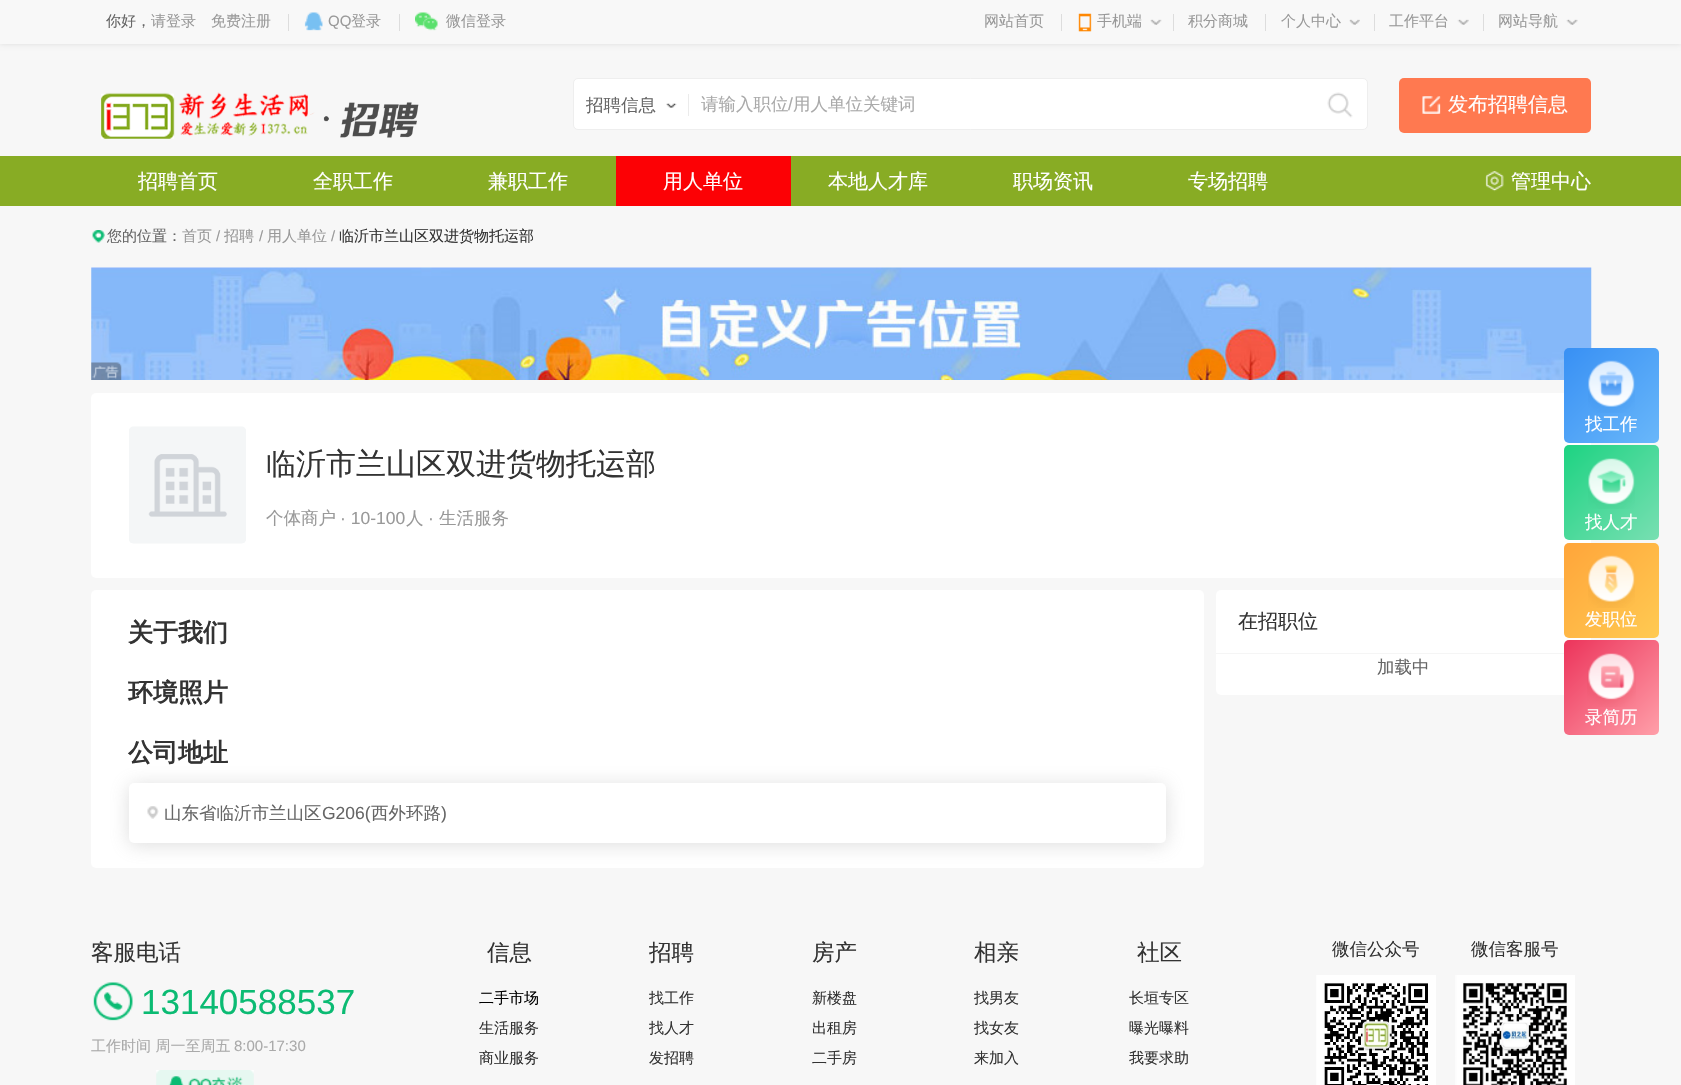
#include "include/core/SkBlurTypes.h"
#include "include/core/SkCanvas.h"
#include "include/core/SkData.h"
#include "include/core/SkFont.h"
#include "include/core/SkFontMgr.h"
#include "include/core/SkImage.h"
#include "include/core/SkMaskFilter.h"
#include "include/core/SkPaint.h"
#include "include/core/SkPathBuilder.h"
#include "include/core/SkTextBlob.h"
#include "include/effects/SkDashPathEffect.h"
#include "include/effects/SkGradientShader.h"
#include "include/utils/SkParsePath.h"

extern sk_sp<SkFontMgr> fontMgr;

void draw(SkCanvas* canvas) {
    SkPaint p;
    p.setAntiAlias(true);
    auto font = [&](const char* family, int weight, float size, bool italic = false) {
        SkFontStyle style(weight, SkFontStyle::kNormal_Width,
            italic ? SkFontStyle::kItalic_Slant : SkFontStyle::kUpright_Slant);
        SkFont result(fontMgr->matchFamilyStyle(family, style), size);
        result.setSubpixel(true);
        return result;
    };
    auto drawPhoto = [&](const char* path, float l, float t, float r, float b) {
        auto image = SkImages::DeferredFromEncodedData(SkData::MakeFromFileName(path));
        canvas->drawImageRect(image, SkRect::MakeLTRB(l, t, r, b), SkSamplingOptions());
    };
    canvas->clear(0xFFF7F7F7);
    p.setColor(0x1A000000);
    p.setMaskFilter(SkMaskFilter::MakeBlur(kNormal_SkBlurStyle, 2.5f));
    canvas->drawRect(SkRect::MakeLTRB(0, 0, 1681, 44), p);
    p.setMaskFilter(nullptr);
    p.setColor(0xFFF8F8F8);
    canvas->drawRect(SkRect::MakeLTRB(0, 0, 1681, 44), p);
    auto font1 = font("WenQuanYi Zen Hei", 500, 15);
    p.setColor(0xFF666666);
    canvas->drawString("你好，", 106, 26, font1, p);
    p.setColor(0xFF999999);
    canvas->drawString("请登录", 151, 26, font1, p);
    canvas->drawString("免费注册", 211, 26, font1, p);
    p.setColor(0xFFDDDDDD);
    canvas->drawRect(SkRect::MakeLTRB(288, 14, 289, 31), p);
    drawPhoto("media/1.png", 304, 12, 323, 31);
    auto font2 = font("Liberation Sans", 400, 15);
    p.setColor(0xFF999999);
    canvas->drawString("QQ", 328, 26, font2, p);
    canvas->drawString("登录", 351, 26, font1, p);
    p.setColor(0xFFDDDDDD);
    canvas->drawRect(SkRect::MakeLTRB(399, 14, 400, 31), p);
    drawPhoto("media/2.png", 415, 12, 438, 31);
    p.setColor(0xFF999999);
    canvas->drawString("微信登录", 446, 26, font1, p);
    canvas->drawString("网站首页", 984, 26, font1, p);
    p.setColor(0xFFDDDDDD);
    canvas->drawRect(SkRect::MakeLTRB(1061, 14, 1062, 31), p);
    drawPhoto("media/3.png", 1078, 13, 1092, 32);
    p.setColor(0xFF999999);
    canvas->drawString("手机端", 1097, 26, font1, p);
    drawPhoto("media/4.png", 1150, 19, 1162, 25);
    p.setColor(0xFFDDDDDD);
    canvas->drawRect(SkRect::MakeLTRB(1173, 14, 1174, 31), p);
    p.setColor(0xFF999999);
    canvas->drawString("积分商城", 1188, 26, font1, p);
    p.setColor(0xFFDDDDDD);
    canvas->drawRect(SkRect::MakeLTRB(1265, 14, 1266, 31), p);
    p.setColor(0xFF999999);
    canvas->drawString("个人中心", 1281, 26, font1, p);
    drawPhoto("media/5.png", 1349, 19, 1360, 25);
    p.setColor(0xFFDDDDDD);
    canvas->drawRect(SkRect::MakeLTRB(1374, 14, 1375, 31), p);
    p.setColor(0xFF999999);
    canvas->drawString("工作平台", 1389, 26, font1, p);
    drawPhoto("media/6.png", 1457, 19, 1469, 25);
    p.setColor(0xFFDDDDDD);
    canvas->drawRect(SkRect::MakeLTRB(1483, 14, 1484, 31), p);
    p.setColor(0xFF999999);
    canvas->drawString("网站导航", 1498, 26, font1, p);
    drawPhoto("media/7.png", 1566, 19, 1578, 25);
    drawPhoto("media/8.png", 101, 92, 419, 139);
    p.setColor(0xFFFFFFFF);
    canvas->drawRoundRect(SkRect::MakeLTRB(573.5f, 78.5f, 1367.5f, 129.5f), 4.5f, 4.5f, p);
    p.setStyle(SkPaint::kStroke_Style);
    p.setStrokeWidth(1);
    p.setColor(0xFFEEEEEE);
    canvas->drawRoundRect(SkRect::MakeLTRB(573.5f, 78.5f, 1367.5f, 129.5f), 4.5f, 4.5f, p);
    p.setStyle(SkPaint::kFill_Style);
    p.setColor(0xFFEBEBEB);
    canvas->drawRect(SkRect::MakeLTRB(688, 94, 689, 116), p);
    drawPhoto("media/9.png", 666, 103, 677, 108);
    auto font3 = font("WenQuanYi Zen Hei", 500, 17.5f);
    p.setColor(0xFF666666);
    canvas->drawString("招聘信息", 586, 111, font3, p);
    p.setColor(0xFFAAAAAA);
    canvas->drawString("请输入职位", 701, 110, font3, p);
    auto font4 = font("Liberation Sans", 400, 17.5f);
    canvas->drawString("/", 788, 110, font4, p);
    canvas->drawString("用人单位关键词", 793, 110, font3, p);
    drawPhoto("media/10.png", 1327, 92, 1353, 118);
    p.setColor(0xFFFF7950);
    canvas->drawRoundRect(SkRect::MakeLTRB(1399, 78, 1591, 133), 5, 5, p);
    drawPhoto("media/11.png", 1422, 96, 1441, 114);
    auto font5 = font("WenQuanYi Zen Hei", 500, 20);
    p.setColor(0xFFFFFFFF);
    canvas->drawString("发布招聘信息", 1448, 111, font5, p);
    p.setColor(0xFF88AC24);
    canvas->drawRect(SkRect::MakeLTRB(0, 156, 1681, 206), p);
    p.setColor(0xFFFFFFFF);
    {
        const struct { const char* s; float x, y; } items[] = {
            {"招聘首页", 138, 188},
            {"全职工作", 313, 188},
            {"兼职工作", 488, 188},
        };
        for (auto [s, x, y] : items) {
            canvas->drawString(s, x, y, font5, p);
        }
    }
    p.setColor(0xFFFC0105);
    canvas->drawRect(SkRect::MakeLTRB(616, 156, 791, 206), p);
    p.setColor(0xFFFFFFFF);
    {
        const struct { const char* s; float x, y; } items[] = {
            {"用人单位", 663, 188},
            {"本地人才库", 828, 188},
            {"职场资讯", 1013, 188},
            {"专场招聘", 1188, 188},
        };
        for (auto [s, x, y] : items) {
            canvas->drawString(s, x, y, font5, p);
        }
    }
    drawPhoto("media/12.png", 1485, 171, 1504, 192);
    canvas->drawString("管理中心", 1511, 188, font5, p);
    drawPhoto("media/13.png", 92, 230, 105, 243);
    p.setColor(0xFF666666);
    canvas->drawString("您的位置：", 107, 241, font1, p);
    p.setColor(0xFF999999);
    canvas->drawString("首页", 182, 241, font1, p);
    canvas->drawString("/", 216, 241, font2, p);
    canvas->drawString("招聘", 224, 241, font1, p);
    canvas->drawString("/", 259, 241, font2, p);
    canvas->drawString("用人单位", 267, 241, font1, p);
    canvas->drawString("/", 331, 241, font2, p);
    p.setColor(0xFF333333);
    canvas->drawString("临沂市兰山区双进货物托运部", 339, 241, font1, p);
    drawPhoto("media/14.png", 91, 267, 1592, 380);
    drawPhoto("media/15.png", 91, 362, 122, 380);
    p.setColor(0xFFFFFFFF);
    canvas->drawRoundRect(SkRect::MakeLTRB(91, 393, 1591, 578), 5, 5, p);
    drawPhoto("media/16.png", 129, 426, 246, 544);
    auto font6 = font("WenQuanYi Zen Hei", 500, 30);
    p.setColor(0xFF333333);
    canvas->drawString("临沂市兰山区双进货物托运部", 266, 474, font6, p);
    p.setColor(0xFF999999);
    canvas->drawString("个体商户", 266, 524, font3, p);
    canvas->drawString("· 10-100", 340, 524, font4, p);
    canvas->drawString("人", 406, 524, font3, p);
    canvas->drawString("·", 428, 524, font4, p);
    canvas->drawString("生活服务", 439, 524, font3, p);
    p.setColor(0xFFFFFFFF);
    canvas->drawRoundRect(SkRect::MakeLTRB(91, 590, 1204, 868), 5, 5, p);
    auto font7 = font("WenQuanYi Zen Hei", 700, 25);
    p.setColor(0xFF333333);
    {
        const struct { const char* s; float x, y; } items[] = {
            {"关于我们", 128, 641},
            {"环境照片", 128, 701},
            {"公司地址", 128, 761},
        };
        for (auto [s, x, y] : items) {
            canvas->drawString(s, x, y, font7, p);
        }
    }
    p.setColor(0x4D8D8D8D);
    p.setMaskFilter(SkMaskFilter::MakeBlur(kNormal_SkBlurStyle, 9.5f));
    canvas->drawRoundRect(SkRect::MakeLTRB(129, 785, 1166, 845), 5, 5, p);
    p.setMaskFilter(nullptr);
    p.setColor(0xFFFFFFFF);
    canvas->drawRoundRect(SkRect::MakeLTRB(129, 783, 1166, 843), 5, 5, p);
    drawPhoto("media/17.png", 147, 806, 159, 819);
    p.setColor(0xFF666666);
    canvas->drawString("山东省临沂市兰山区", 164, 819, font3, p);
    canvas->drawString("G206(", 322, 819, font4, p);
    canvas->drawString("西外环路", 371, 819, font3, p);
    canvas->drawString(")", 441, 819, font4, p);
    p.setColor(0xFFFFFFFF);
    canvas->drawRoundRect(SkRect::MakeLTRB(1216, 590, 1591, 695), 5, 5, p);
    p.setColor(0xFFF5F5F5);
    canvas->drawRect(SkRect::MakeLTRB(1216, 653, 1564, 654), p);
    p.setColor(0xFF333333);
    canvas->drawString("在招职位", 1238, 628, font5, p);
    p.setColor(0xFF666666);
    canvas->drawString("加载中", 1377, 673, font3, p);
    {
        const SkColor colors[] = {0xFF69B7FA, 0xFF3890F4};
        const float stops[] = {0, 1};
        const SkPoint ends[] = {{1659, 443}, {1564, 348}};
        p.setShader(SkGradientShader::MakeLinear(ends, colors, stops, 2, SkTileMode::kClamp));
        p.setAlpha(255);
    }
    canvas->drawRoundRect(SkRect::MakeLTRB(1564, 348, 1659, 443), 5, 5, p);
    drawPhoto("media/18.png", 1588, 360, 1635, 413);
    p.setShader(nullptr);
    p.setColor(0xFFFFFFFF);
    canvas->drawString("找工作", 1585, 430, font3, p);
    {
        const SkColor colors[] = {0xFF78DFB2, 0xFF1DD382};
        const float stops[] = {0, 1};
        const SkPoint ends[] = {{1659, 540}, {1564, 445}};
        p.setShader(SkGradientShader::MakeLinear(ends, colors, stops, 2, SkTileMode::kClamp));
        p.setAlpha(255);
    }
    canvas->drawRoundRect(SkRect::MakeLTRB(1564, 445, 1659, 540), 5, 5, p);
    drawPhoto("media/19.png", 1588, 458, 1635, 509);
    p.setShader(nullptr);
    p.setColor(0xFFFFFFFF);
    canvas->drawString("找人才", 1585, 528, font3, p);
    {
        const SkColor colors[] = {0xFFFFCA52, 0xFFFFA53A};
        const float stops[] = {0, 1};
        const SkPoint ends[] = {{1659, 638}, {1564, 543}};
        p.setShader(SkGradientShader::MakeLinear(ends, colors, stops, 2, SkTileMode::kClamp));
        p.setAlpha(255);
    }
    canvas->drawRoundRect(SkRect::MakeLTRB(1564, 543, 1659, 638), 5, 5, p);
    drawPhoto("media/20.png", 1588, 555, 1635, 608);
    p.setShader(nullptr);
    p.setColor(0xFFFFFFFF);
    canvas->drawString("发职位", 1585, 625, font3, p);
    {
        const SkColor colors[] = {0xFFFF9FA9, 0xFFEC345B};
        const float stops[] = {0, 1};
        const SkPoint ends[] = {{1659, 735}, {1564, 640}};
        p.setShader(SkGradientShader::MakeLinear(ends, colors, stops, 2, SkTileMode::kClamp));
        p.setAlpha(255);
    }
    canvas->drawRoundRect(SkRect::MakeLTRB(1564, 640, 1659, 735), 5, 5, p);
    drawPhoto("media/21.png", 1587, 653, 1636, 707);
    p.setShader(nullptr);
    p.setColor(0xFFFFFFFF);
    canvas->drawString("录简历", 1585, 723, font3, p);
    auto font8 = font("WenQuanYi Zen Hei", 500, 22.5f);
    p.setColor(0xFF333333);
    canvas->drawString("客服电话", 91, 960, font8, p);
    drawPhoto("media/22.png", 93, 982, 133, 1021);
    auto font9 = font("Liberation Sans", 400, 35);
    p.setColor(0xFF0BBB73);
    canvas->drawString("13140588537", 141, 1014, font9, p);
    p.setColor(0xFFAAAAAA);
    canvas->drawString("工作时间 周一至周五", 91, 1051, font1, p);
    canvas->drawString("8:00-17:30", 234, 1051, font2, p);
    drawPhoto("media/23.png", 156, 1070, 254, 1085);
    p.setColor(0xFF333333);
    canvas->drawString("信息", 487, 960, font8, p);
    p.setColor(0xFF000000);
    canvas->drawString("二手市场", 479, 1003, font1, p);
    p.setColor(0xFF333333);
    canvas->drawString("生活服务", 479, 1033, font1, p);
    canvas->drawString("商业服务", 479, 1063, font1, p);
    canvas->drawString("招聘", 649, 960, font8, p);
    {
        const struct { const char* s; float x, y; } items[] = {
            {"找工作", 649, 1003},
            {"找人才", 649, 1033},
            {"发招聘", 649, 1063},
        };
        for (auto [s, x, y] : items) {
            canvas->drawString(s, x, y, font1, p);
        }
    }
    canvas->drawString("房产", 812, 960, font8, p);
    {
        const struct { const char* s; float x, y; } items[] = {
            {"新楼盘", 812, 1003},
            {"出租房", 812, 1033},
            {"二手房", 812, 1063},
        };
        for (auto [s, x, y] : items) {
            canvas->drawString(s, x, y, font1, p);
        }
    }
    canvas->drawString("相亲", 974, 960, font8, p);
    {
        const struct { const char* s; float x, y; } items[] = {
            {"找男友", 974, 1003},
            {"找女友", 974, 1033},
            {"来加入", 974, 1063},
        };
        for (auto [s, x, y] : items) {
            canvas->drawString(s, x, y, font1, p);
        }
    }
    canvas->drawString("社区", 1137, 960, font8, p);
    {
        const struct { const char* s; float x, y; } items[] = {
            {"长垣专区", 1129, 1003},
            {"曝光曝料", 1129, 1033},
            {"我要求助", 1129, 1063},
        };
        for (auto [s, x, y] : items) {
            canvas->drawString(s, x, y, font1, p);
        }
    }
    canvas->drawString("微信公众号", 1332, 955, font3, p);
    drawPhoto("media/24.png", 1316, 975, 1436, 1085);
    canvas->drawString("微信客服号", 1471, 955, font3, p);
    drawPhoto("media/25.png", 1455, 975, 1575, 1085);
}
